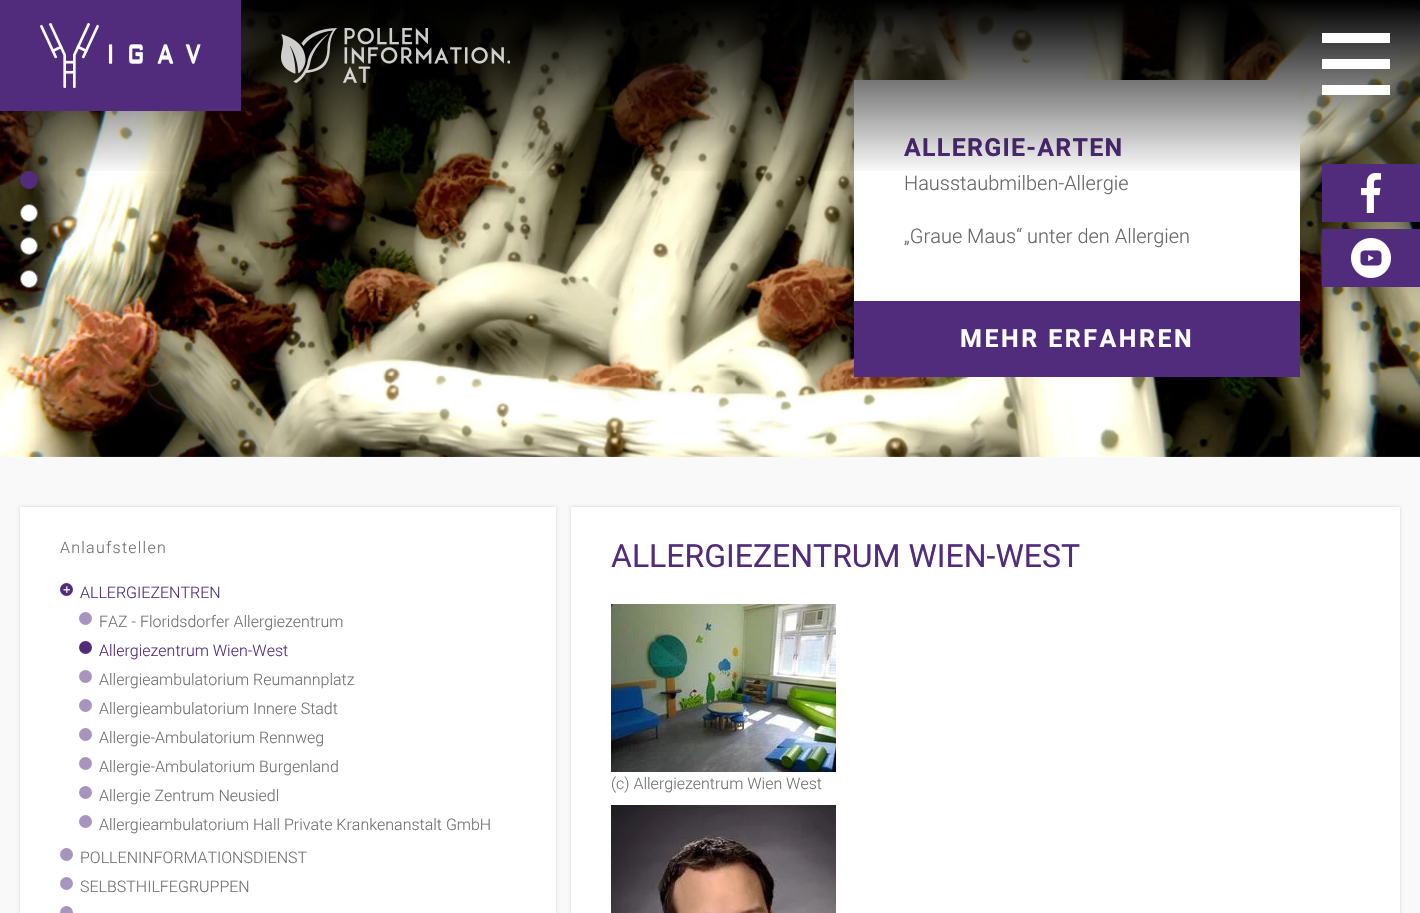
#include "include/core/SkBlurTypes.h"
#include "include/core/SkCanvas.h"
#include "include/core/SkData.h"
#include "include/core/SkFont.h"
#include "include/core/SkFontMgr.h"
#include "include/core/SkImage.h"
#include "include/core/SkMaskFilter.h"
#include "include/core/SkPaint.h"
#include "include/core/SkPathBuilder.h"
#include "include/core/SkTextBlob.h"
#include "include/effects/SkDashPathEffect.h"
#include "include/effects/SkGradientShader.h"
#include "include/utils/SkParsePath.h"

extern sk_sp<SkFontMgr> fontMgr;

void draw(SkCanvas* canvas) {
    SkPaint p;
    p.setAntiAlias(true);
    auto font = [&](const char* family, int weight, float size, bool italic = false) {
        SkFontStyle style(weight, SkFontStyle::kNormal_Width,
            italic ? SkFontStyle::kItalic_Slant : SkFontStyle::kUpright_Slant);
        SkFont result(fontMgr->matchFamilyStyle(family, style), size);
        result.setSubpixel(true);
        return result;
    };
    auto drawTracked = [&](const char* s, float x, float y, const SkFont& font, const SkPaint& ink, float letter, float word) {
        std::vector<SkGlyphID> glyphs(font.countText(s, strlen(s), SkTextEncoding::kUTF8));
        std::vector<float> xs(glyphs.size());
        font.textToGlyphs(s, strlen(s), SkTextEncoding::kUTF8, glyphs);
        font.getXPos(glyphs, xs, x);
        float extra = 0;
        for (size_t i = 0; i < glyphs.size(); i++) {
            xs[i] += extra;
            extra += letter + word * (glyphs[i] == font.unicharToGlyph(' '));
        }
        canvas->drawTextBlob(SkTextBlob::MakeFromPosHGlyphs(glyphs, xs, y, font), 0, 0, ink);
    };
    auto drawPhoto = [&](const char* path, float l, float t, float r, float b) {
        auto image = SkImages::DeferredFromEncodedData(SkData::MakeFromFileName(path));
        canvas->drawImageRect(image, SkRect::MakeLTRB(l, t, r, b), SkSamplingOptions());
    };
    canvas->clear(0xFFF9F9F9);
    drawPhoto("media/3.png", 0, 1, 1420, 457);
    p.setColor(0xFFFFFFFF);
    canvas->drawRect(SkRect::MakeLTRB(854, 80, 1300, 301), p);
    auto font1 = font("Roboto", 700, 25);
    p.setColor(0xFF522C7C);
    drawTracked("ALLERGIE-ARTEN", 904, 156, font1, p, 1.25f, 0);
    {
        const SkColor colors[] = {0xFF000000, 0x00000000};
        const float stops[] = {0, 0.5f};
        const SkPoint ends[] = {{710, 0}, {710, 350}};
        p.setShader(SkGradientShader::MakeLinear(ends, colors, stops, 2, SkTileMode::kClamp));
        p.setAlpha(255);
    }
    canvas->drawRect(SkRect::MakeLTRB(0, 0, 1420, 171), p);
    p.setShader(nullptr);
    p.setColor(0xFF522C7C);
    canvas->drawRect(SkRect::MakeLTRB(0, 0, 241, 111), p);
    drawPhoto("media/1.png", 40, 23, 201, 88);
    drawPhoto("media/2.png", 281, 28, 510, 83);
    {
        const struct { float l, t, r, b; SkColor color; } items[] = {
            {1322, 59, 1390, 69, 0xFFFFFFFF},
            {1322, 33, 1390, 43, 0xFFFFFFFF},
            {1322, 85, 1390, 95, 0xFFFFFFFF},
        };
        for (auto [l, t, r, b, color] : items) {
            p.setColor(color);
            canvas->drawRect(SkRect::MakeLTRB(l, t, r, b), p);
        }
    }
    p.setColor(0xFF522C7C);
    canvas->drawCircle(29, 180, 8.5f, p);
    p.setStyle(SkPaint::kStroke_Style);
    p.setStrokeWidth(1);
    canvas->drawCircle(29, 180, 8.5f, p);
    p.setStyle(SkPaint::kFill_Style);
    p.setColor(0xFFFFFFFF);
    canvas->drawCircle(29, 213, 8.5f, p);
    p.setStyle(SkPaint::kStroke_Style);
    p.setColor(0xFF707070);
    canvas->drawCircle(29, 213, 8.5f, p);
    p.setStyle(SkPaint::kFill_Style);
    p.setColor(0xFFFFFFFF);
    canvas->drawCircle(29, 246, 8.5f, p);
    p.setStyle(SkPaint::kStroke_Style);
    p.setColor(0xFF707070);
    canvas->drawCircle(29, 246, 8.5f, p);
    p.setStyle(SkPaint::kFill_Style);
    p.setColor(0xFFFFFFFF);
    canvas->drawCircle(29, 279, 8.5f, p);
    p.setStyle(SkPaint::kStroke_Style);
    p.setColor(0xFF707070);
    canvas->drawCircle(29, 279, 8.5f, p);
    auto font2 = font("Roboto", 300, 20);
    p.setStyle(SkPaint::kFill_Style);
    p.setColor(0xFF666666);
    canvas->drawString("Hausstaubmilben-Allergie", 904, 190, font2, p);
    canvas->drawString("„Graue Maus“ unter den Allergien", 904, 243, font2, p);
    p.setColor(0xFF522C7C);
    canvas->drawRect(SkRect::MakeLTRB(854, 301, 1300, 377), p);
    p.setColor(0xFFFFFFFF);
    drawTracked("MEHR ERFAHREN", 960, 347, font1, p, 2.5f, 0);
    p.setColor(0xFF522C7C);
    canvas->drawRect(SkRect::MakeLTRB(1322, 164, 1420, 222), p);
    drawPhoto("media/4.png", 1361, 173, 1381, 213);
    canvas->drawRect(SkRect::MakeLTRB(1322, 229, 1420, 287), p);
    drawPhoto("media/5.png", 1351, 238, 1391, 278);
    p.setColor(0x29000000);
    p.setMaskFilter(SkMaskFilter::MakeBlur(kNormal_SkBlurStyle, 1.5f));
    canvas->drawRect(SkRect::MakeLTRB(20, 507, 556, 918), p);
    p.setMaskFilter(nullptr);
    p.setColor(0xFFFFFFFF);
    canvas->drawRect(SkRect::MakeLTRB(20, 507, 556, 913), p);
    auto font3 = font("Roboto", 300, 16);
    p.setColor(0xFF707070);
    drawTracked("Anlaufstellen", 60, 553, font3, p, 1.25f, 0);
    p.setColor(0xFF522C7C);
    canvas->drawCircle(66.5f, 589.5f, 6.5f, p);
    auto font4 = font("Liberation Sans", 400, 13);
    p.setColor(0xFFFFFFFF);
    canvas->drawString("+", 63, 594, font4, p);
    p.setColor(0xFF522C7C);
    canvas->drawString("ALLERGIEZENTREN", 80, 598, font3, p);
    p.setColor(0xFFA895BD);
    canvas->drawCircle(85.5f, 618.5f, 6.5f, p);
    p.setColor(0xFF707070);
    canvas->drawString("FAZ - Floridsdorfer Allergiezentrum", 99, 627, font3, p);
    p.setColor(0xFF522C7C);
    canvas->drawCircle(85.5f, 647.5f, 6.5f, p);
    canvas->drawString("Allergiezentrum Wien-West", 99, 656, font3, p);
    p.setColor(0xFFA895BD);
    canvas->drawCircle(85.5f, 676.5f, 6.5f, p);
    p.setColor(0xFF707070);
    canvas->drawString("Allergieambulatorium Reumannplatz", 99, 685, font3, p);
    p.setColor(0xFFA895BD);
    canvas->drawCircle(85.5f, 705.5f, 6.5f, p);
    p.setColor(0xFF707070);
    canvas->drawString("Allergieambulatorium Innere Stadt", 99, 714, font3, p);
    p.setColor(0xFFA895BD);
    canvas->drawCircle(85.5f, 734.5f, 6.5f, p);
    p.setColor(0xFF707070);
    canvas->drawString("Allergie-Ambulatorium Rennweg", 99, 743, font3, p);
    p.setColor(0xFFA895BD);
    canvas->drawCircle(85.5f, 763.5f, 6.5f, p);
    p.setColor(0xFF707070);
    canvas->drawString("Allergie-Ambulatorium Burgenland", 99, 772, font3, p);
    p.setColor(0xFFA895BD);
    canvas->drawCircle(85.5f, 792.5f, 6.5f, p);
    p.setColor(0xFF707070);
    canvas->drawString("Allergie Zentrum Neusiedl", 99, 801, font3, p);
    p.setColor(0xFFA895BD);
    canvas->drawCircle(85.5f, 821.5f, 6.5f, p);
    p.setColor(0xFF707070);
    canvas->drawString("Allergieambulatorium Hall Private Krankenanstalt GmbH", 99, 830, font3, p);
    p.setColor(0xFFA895BD);
    canvas->drawCircle(66.5f, 854.5f, 6.5f, p);
    p.setColor(0xFF707070);
    canvas->drawString("POLLENINFORMATIONSDIENST", 80, 863, font3, p);
    p.setColor(0xFFA895BD);
    canvas->drawCircle(66.5f, 883.5f, 6.5f, p);
    p.setColor(0xFF707070);
    canvas->drawString("SELBSTHILFEGRUPPEN", 80, 892, font3, p);
    p.setColor(0xFFA895BD);
    canvas->drawCircle(66.5f, 912.5f, 6.5f, p);
    p.setColor(0x29000000);
    p.setMaskFilter(SkMaskFilter::MakeBlur(kNormal_SkBlurStyle, 1.5f));
    canvas->drawRect(SkRect::MakeLTRB(571, 507, 1400, 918), p);
    p.setMaskFilter(nullptr);
    p.setColor(0xFFFFFFFF);
    canvas->drawRect(SkRect::MakeLTRB(571, 507, 1400, 913), p);
    auto font5 = font("Roboto", 400, 32);
    p.setColor(0xFF522C7C);
    canvas->drawString("ALLERGIEZENTRUM WIEN-WEST", 611, 567, font5, p);
    drawPhoto("media/6.png", 611, 604, 836, 772);
    p.setColor(0xFF707070);
    canvas->drawString("(c) Allergiezentrum Wien West", 611, 789, font3, p);
    drawPhoto("media/7.png", 611, 805, 836, 913);
}
